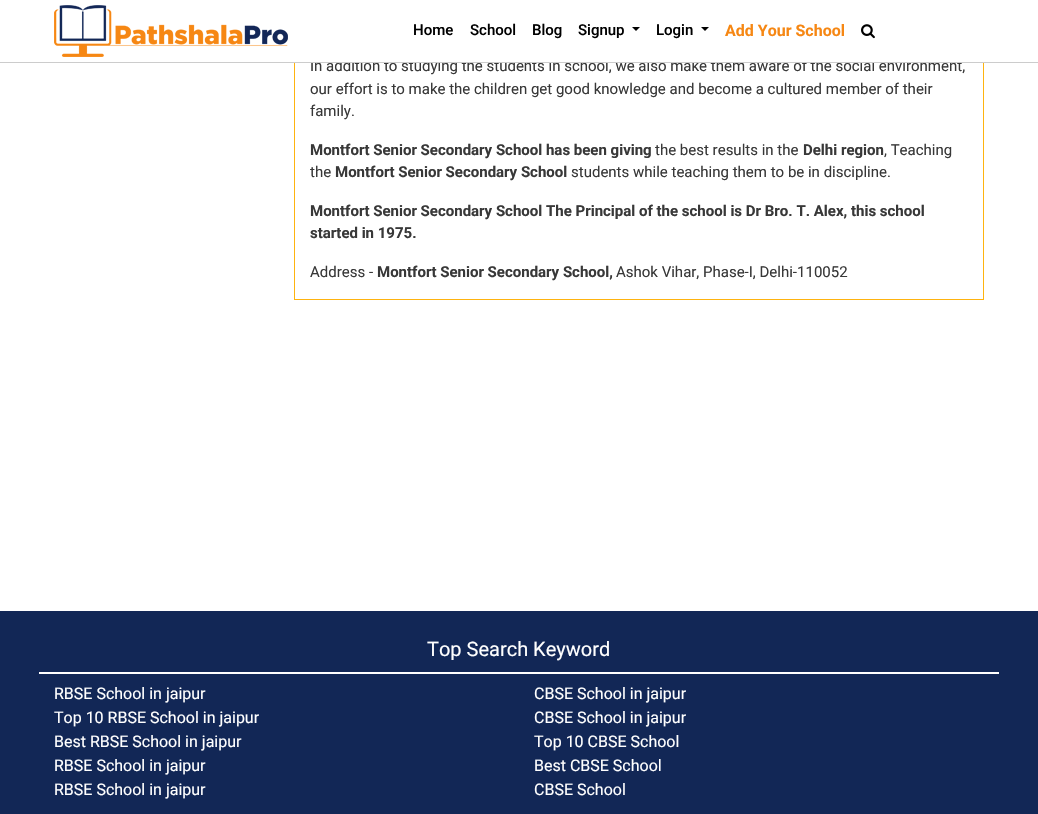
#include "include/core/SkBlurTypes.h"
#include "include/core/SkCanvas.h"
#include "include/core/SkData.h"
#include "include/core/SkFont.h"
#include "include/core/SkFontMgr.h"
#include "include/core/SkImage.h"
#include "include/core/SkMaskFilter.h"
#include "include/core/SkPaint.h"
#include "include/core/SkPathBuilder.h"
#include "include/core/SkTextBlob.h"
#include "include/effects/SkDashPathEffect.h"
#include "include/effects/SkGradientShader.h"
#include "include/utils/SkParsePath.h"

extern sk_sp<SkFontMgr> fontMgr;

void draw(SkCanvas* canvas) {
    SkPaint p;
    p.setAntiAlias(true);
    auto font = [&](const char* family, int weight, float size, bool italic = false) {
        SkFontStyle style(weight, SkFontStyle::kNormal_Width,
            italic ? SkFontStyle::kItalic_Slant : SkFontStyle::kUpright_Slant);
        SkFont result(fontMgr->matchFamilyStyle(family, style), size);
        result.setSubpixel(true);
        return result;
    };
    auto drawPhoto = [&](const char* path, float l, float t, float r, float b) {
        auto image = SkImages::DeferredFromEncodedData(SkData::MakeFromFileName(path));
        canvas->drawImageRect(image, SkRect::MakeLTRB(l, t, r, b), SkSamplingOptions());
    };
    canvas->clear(0xFFFFFFFF);
    auto font1 = font("Roboto", 400, 15);
    p.setColor(0xFF383838);
    canvas->drawString("In addition to studying the students in school, we also make them aware of the social environment,", 310, 71, font1, p);
    p.setColor(0xFFFFFFFF);
    canvas->drawRect(SkRect::MakeLTRB(311, 59, 961, 62), p);
    p.setColor(0xFFCCCCCC);
    canvas->drawRect(SkRect::MakeLTRB(0, 62, 1038, 63), p);
    drawPhoto("media/1.png", 54, 5, 288, 57);
    auto font2 = font("Roboto", 500, 15);
    p.setColor(0xFF000000);
    {
        const struct { const char* s; float x, y; } items[] = {
            {"Home", 413, 35},
            {"School", 470, 35},
            {"Blog", 532, 35},
            {"Signup", 578, 35},
        };
        for (auto [s, x, y] : items) {
            canvas->drawString(s, x, y, font2, p);
        }
    }
    canvas->drawPath(SkPathBuilder().moveTo(632, 27).lineTo(640, 27).lineTo(636, 31).close().detach(), p);
    canvas->drawString("Login", 656, 35, font2, p);
    canvas->drawPath(SkPathBuilder().moveTo(701, 27).lineTo(709, 27).lineTo(705, 31).close().detach(), p);
    auto font3 = font("Roboto", 700, 16);
    p.setColor(0xFFF68713);
    canvas->drawString("Add Your School", 725, 36, font3, p);
    drawPhoto("media/2.png", 861, 24, 875, 39);
    {
        const struct { float l, t, r, b; SkColor color; } items[] = {
            {983, 63, 984, 300, 0xFFFEB30F},
            {294, 299, 984, 300, 0xFFFEB30F},
            {294, 63, 295, 300, 0xFFFEB30F},
        };
        for (auto [l, t, r, b, color] : items) {
            p.setColor(color);
            canvas->drawRect(SkRect::MakeLTRB(l, t, r, b), p);
        }
    }
    p.setColor(0xFF383838);
    canvas->drawString("our effort is to make the children get good knowledge and become a cultured member of their", 310, 94, font1, p);
    canvas->drawString("family.", 310, 116, font1, p);
    auto font4 = font("Roboto", 700, 15);
    canvas->drawString("Montfort Senior Secondary School has been giving", 310, 155, font4, p);
    canvas->drawString("the best results in the", 655, 155, font1, p);
    canvas->drawString("Delhi region", 803, 155, font4, p);
    canvas->drawString(", Teaching", 884, 155, font1, p);
    canvas->drawString("the", 310, 177, font1, p);
    canvas->drawString("Montfort Senior Secondary School", 335, 177, font4, p);
    canvas->drawString("students while teaching them to be in discipline.", 571, 177, font1, p);
    canvas->drawString("Montfort Senior Secondary School The Principal of the school is Dr Bro. T. Alex, this school", 310, 216, font4, p);
    canvas->drawString("started in 1975.", 310, 238, font4, p);
    canvas->drawString("Address -", 310, 277, font1, p);
    canvas->drawString("Montfort Senior Secondary School,", 377, 277, font4, p);
    canvas->drawString("Ashok Vihar, Phase-I, Delhi-110052", 616, 277, font1, p);
    p.setColor(0xFF122756);
    canvas->drawRect(SkRect::MakeLTRB(0, 611, 1038, 814), p);
    p.setColor(0xFFFFFFFF);
    canvas->drawRect(SkRect::MakeLTRB(39, 672, 999, 674), p);
    auto font5 = font("Roboto", 400, 20);
    canvas->drawString("Top Search Keyword", 427, 656, font5, p);
    auto font6 = font("Roboto", 400, 16);
    {
        const struct { const char* s; float x, y; } items[] = {
            {"RBSE School in jaipur", 54, 699},
            {"Top 10 RBSE School in jaipur", 54, 723},
            {"Best RBSE School in jaipur", 54, 747},
            {"RBSE School in jaipur", 54, 771},
            {"RBSE School in jaipur", 54, 795},
            {"CBSE School in jaipur", 534, 699},
            {"CBSE School in jaipur", 534, 723},
            {"Top 10 CBSE School", 534, 747},
            {"Best CBSE School", 534, 771},
            {"CBSE School", 534, 795},
        };
        for (auto [s, x, y] : items) {
            canvas->drawString(s, x, y, font6, p);
        }
    }
}
